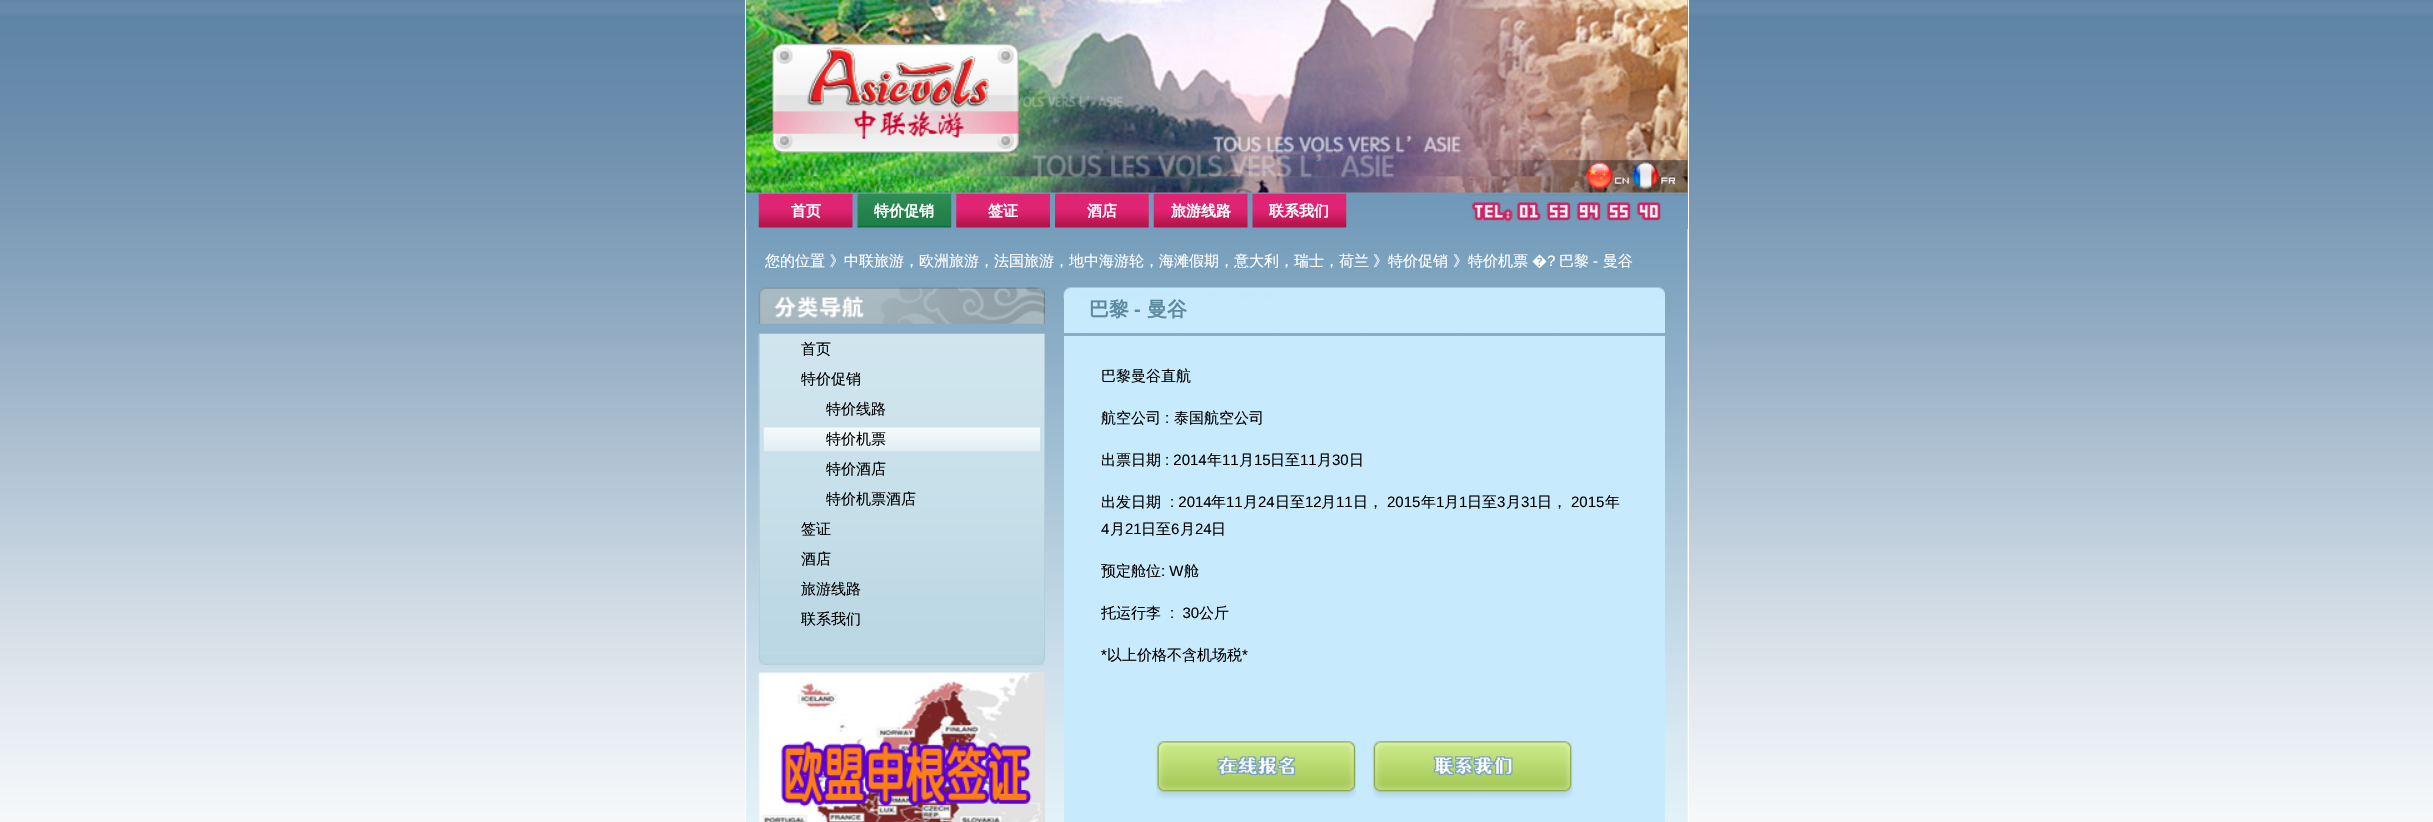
#include "include/core/SkBlurTypes.h"
#include "include/core/SkCanvas.h"
#include "include/core/SkData.h"
#include "include/core/SkFont.h"
#include "include/core/SkFontMgr.h"
#include "include/core/SkImage.h"
#include "include/core/SkMaskFilter.h"
#include "include/core/SkPaint.h"
#include "include/core/SkPathBuilder.h"
#include "include/core/SkTextBlob.h"
#include "include/effects/SkDashPathEffect.h"
#include "include/effects/SkGradientShader.h"
#include "include/utils/SkParsePath.h"

extern sk_sp<SkFontMgr> fontMgr;

void draw(SkCanvas* canvas) {
    SkPaint p;
    p.setAntiAlias(true);
    auto font = [&](const char* family, int weight, float size, bool italic = false) {
        SkFontStyle style(weight, SkFontStyle::kNormal_Width,
            italic ? SkFontStyle::kItalic_Slant : SkFontStyle::kUpright_Slant);
        SkFont result(fontMgr->matchFamilyStyle(family, style), size);
        result.setSubpixel(true);
        return result;
    };
    auto drawPhoto = [&](const char* path, float l, float t, float r, float b) {
        auto image = SkImages::DeferredFromEncodedData(SkData::MakeFromFileName(path));
        canvas->drawImageRect(image, SkRect::MakeLTRB(l, t, r, b), SkSamplingOptions());
    };
    canvas->clear(0xFFFFFFFF);
    drawPhoto("media/1.png", 0, 0, 2433, 822);
    p.setColor(0xFFFFFFFF);
    canvas->drawRect(SkRect::MakeLTRB(1688, 0, 1689, 822), p);
    canvas->drawRect(SkRect::MakeLTRB(745, 0, 746, 822), p);
    drawPhoto("media/2.png", 746, 0, 1688, 193);
    drawPhoto("media/3.png", 772, 43, 1019, 153);
    drawPhoto("media/4.png", 1586, 162, 1629, 189);
    drawPhoto("media/5.png", 1632, 162, 1675, 189);
    drawPhoto("media/6.png", 746, 194, 1688, 229);
    drawPhoto("media/7.png", 1467, 194, 1688, 222);
    drawPhoto("media/8.png", 758, 193, 853, 228);
    auto font1 = font("WenQuanYi Zen Hei", 700, 15);
    canvas->drawString("首页", 791, 216, font1, p);
    drawPhoto("media/9.png", 857, 193, 952, 228);
    canvas->drawString("特价促销", 874, 216, font1, p);
    drawPhoto("media/10.png", 956, 193, 1050, 228);
    canvas->drawString("签证", 988, 216, font1, p);
    drawPhoto("media/11.png", 1055, 193, 1149, 228);
    canvas->drawString("酒店", 1087, 216, font1, p);
    drawPhoto("media/12.png", 1153, 193, 1248, 228);
    canvas->drawString("旅游线路", 1171, 216, font1, p);
    drawPhoto("media/13.png", 1252, 193, 1347, 228);
    canvas->drawString("联系我们", 1269, 216, font1, p);
    p.setColor(0xFFEBF6FA);
    canvas->drawRect(SkRect::MakeLTRB(746, 229, 1688, 822), p);
    drawPhoto("media/14.png", 746, 229, 1688, 822);
    auto font2 = font("WenQuanYi Zen Hei", 500, 15);
    p.setColor(0xFFFFFFFF);
    {
        const struct { const char* s; float x, y; } items[] = {
            {"您的位置 》", 765, 266},
            {"中联旅游，欧洲旅游，法国旅游，地中海游轮，海滩假期，意大利，瑞士，荷兰", 844, 266},
            {"》特价促销", 1373, 266},
            {"》特价机票", 1453, 266},
        };
        for (auto [s, x, y] : items) {
            canvas->drawString(s, x, y, font2, p);
        }
    }
    auto font3 = font("Noto Sans", 400, 15);
    canvas->drawString("�", 1532, 266, font3, p);
    auto font4 = font("Liberation Sans", 400, 15);
    canvas->drawString("?", 1547, 266, font4, p);
    canvas->drawString("巴黎", 1559, 266, font2, p);
    canvas->drawString("-", 1593, 266, font4, p);
    canvas->drawString("曼谷", 1603, 266, font2, p);
    drawPhoto("media/15.png", 758, 287, 1045, 324);
    drawPhoto("media/16.png", 758, 333, 1045, 653);
    p.setColor(0xFFB4CFDA);
    canvas->drawRect(SkRect::MakeLTRB(1044, 334, 1045, 653), p);
    canvas->drawRect(SkRect::MakeLTRB(759, 334, 760, 653), p);
    p.setColor(0xFF000000);
    {
        const struct { const char* s; float x, y; } items[] = {
            {"首页", 801, 354},
            {"特价促销", 801, 384},
            {"特价线路", 826, 414},
        };
        for (auto [s, x, y] : items) {
            canvas->drawString(s, x, y, font2, p);
        }
    }
    drawPhoto("media/17.png", 763, 427, 1040, 452);
    {
        const struct { const char* s; float x, y; } items[] = {
            {"特价机票", 826, 444},
            {"特价酒店", 826, 474},
            {"特价机票酒店", 826, 504},
            {"签证", 801, 534},
            {"酒店", 801, 564},
            {"旅游线路", 801, 594},
            {"联系我们", 801, 624},
        };
        for (auto [s, x, y] : items) {
            canvas->drawString(s, x, y, font2, p);
        }
    }
    drawPhoto("media/18.png", 758, 652, 1045, 665);
    drawPhoto("media/19.png", 758, 672, 1045, 822);
    p.setColor(0xFFC7EAFD);
    canvas->drawRect(SkRect::MakeLTRB(1064, 298, 1665, 333), p);
    drawPhoto("media/20.png", 1063, 287, 1665, 299);
    auto font5 = font("WenQuanYi Zen Hei", 700, 20);
    p.setColor(0xFF5D8AA1);
    canvas->drawString("巴黎", 1089, 316, font5, p);
    auto font6 = font("Liberation Sans", 700, 20);
    canvas->drawString("-", 1134, 316, font6, p);
    canvas->drawString("曼谷", 1147, 316, font5, p);
    p.setColor(0xFFC7EAFD);
    canvas->drawRect(SkRect::MakeLTRB(1064, 336, 1665, 822), p);
    p.setColor(0xFF000000);
    canvas->drawString("巴黎曼谷直航", 1101, 381, font2, p);
    canvas->drawString("航空公司", 1101, 423, font2, p);
    canvas->drawString(":", 1165, 423, font4, p);
    canvas->drawString("泰国航空公司", 1174, 423, font2, p);
    canvas->drawString("出票日期", 1101, 465, font2, p);
    canvas->drawString(": 2014", 1165, 465, font4, p);
    canvas->drawString("年", 1207, 465, font2, p);
    canvas->drawString("11", 1222, 465, font4, p);
    canvas->drawString("月", 1239, 465, font2, p);
    canvas->drawString("15", 1254, 465, font4, p);
    canvas->drawString("日至", 1270, 465, font2, p);
    canvas->drawString("11", 1300, 465, font4, p);
    canvas->drawString("月", 1317, 465, font2, p);
    canvas->drawString("30", 1332, 465, font4, p);
    canvas->drawString("日", 1349, 465, font2, p);
    canvas->drawString("出发日期", 1101, 507, font2, p);
    canvas->drawString(": 2014", 1170, 507, font4, p);
    canvas->drawString("年", 1211, 507, font2, p);
    canvas->drawString("11", 1226, 507, font4, p);
    canvas->drawString("月", 1243, 507, font2, p);
    canvas->drawString("24", 1258, 507, font4, p);
    canvas->drawString("日至", 1275, 507, font2, p);
    canvas->drawString("12", 1305, 507, font4, p);
    canvas->drawString("月", 1321, 507, font2, p);
    canvas->drawString("11", 1336, 507, font4, p);
    canvas->drawString("日，", 1353, 507, font2, p);
    canvas->drawString("2015", 1387, 507, font4, p);
    canvas->drawString("年", 1421, 507, font2, p);
    canvas->drawString("1", 1436, 507, font4, p);
    canvas->drawString("月", 1444, 507, font2, p);
    canvas->drawString("1", 1459, 507, font4, p);
    canvas->drawString("日至", 1467, 507, font2, p);
    canvas->drawString("3", 1497, 507, font4, p);
    canvas->drawString("月", 1506, 507, font2, p);
    canvas->drawString("31", 1521, 507, font4, p);
    canvas->drawString("日，", 1537, 507, font2, p);
    canvas->drawString("2015", 1571, 507, font4, p);
    canvas->drawString("年", 1605, 507, font2, p);
    canvas->drawString("4", 1101, 534, font4, p);
    canvas->drawString("月", 1110, 534, font2, p);
    canvas->drawString("21", 1125, 534, font4, p);
    canvas->drawString("日至", 1141, 534, font2, p);
    canvas->drawString("6", 1171, 534, font4, p);
    canvas->drawString("月", 1180, 534, font2, p);
    canvas->drawString("24", 1195, 534, font4, p);
    canvas->drawString("日", 1211, 534, font2, p);
    canvas->drawString("预定舱位", 1101, 576, font2, p);
    canvas->drawString(": W", 1161, 576, font4, p);
    canvas->drawString("舱", 1184, 576, font2, p);
    canvas->drawString("托运行李", 1101, 618, font2, p);
    canvas->drawString(":  30", 1170, 618, font4, p);
    canvas->drawString("公斤", 1199, 618, font2, p);
    canvas->drawString("*", 1101, 660, font4, p);
    canvas->drawString("以上价格不含机场税", 1107, 660, font2, p);
    canvas->drawString("*", 1242, 660, font4, p);
    drawPhoto("media/21.png", 1156, 741, 1356, 799);
    drawPhoto("media/22.png", 1372, 740, 1573, 799);
}
